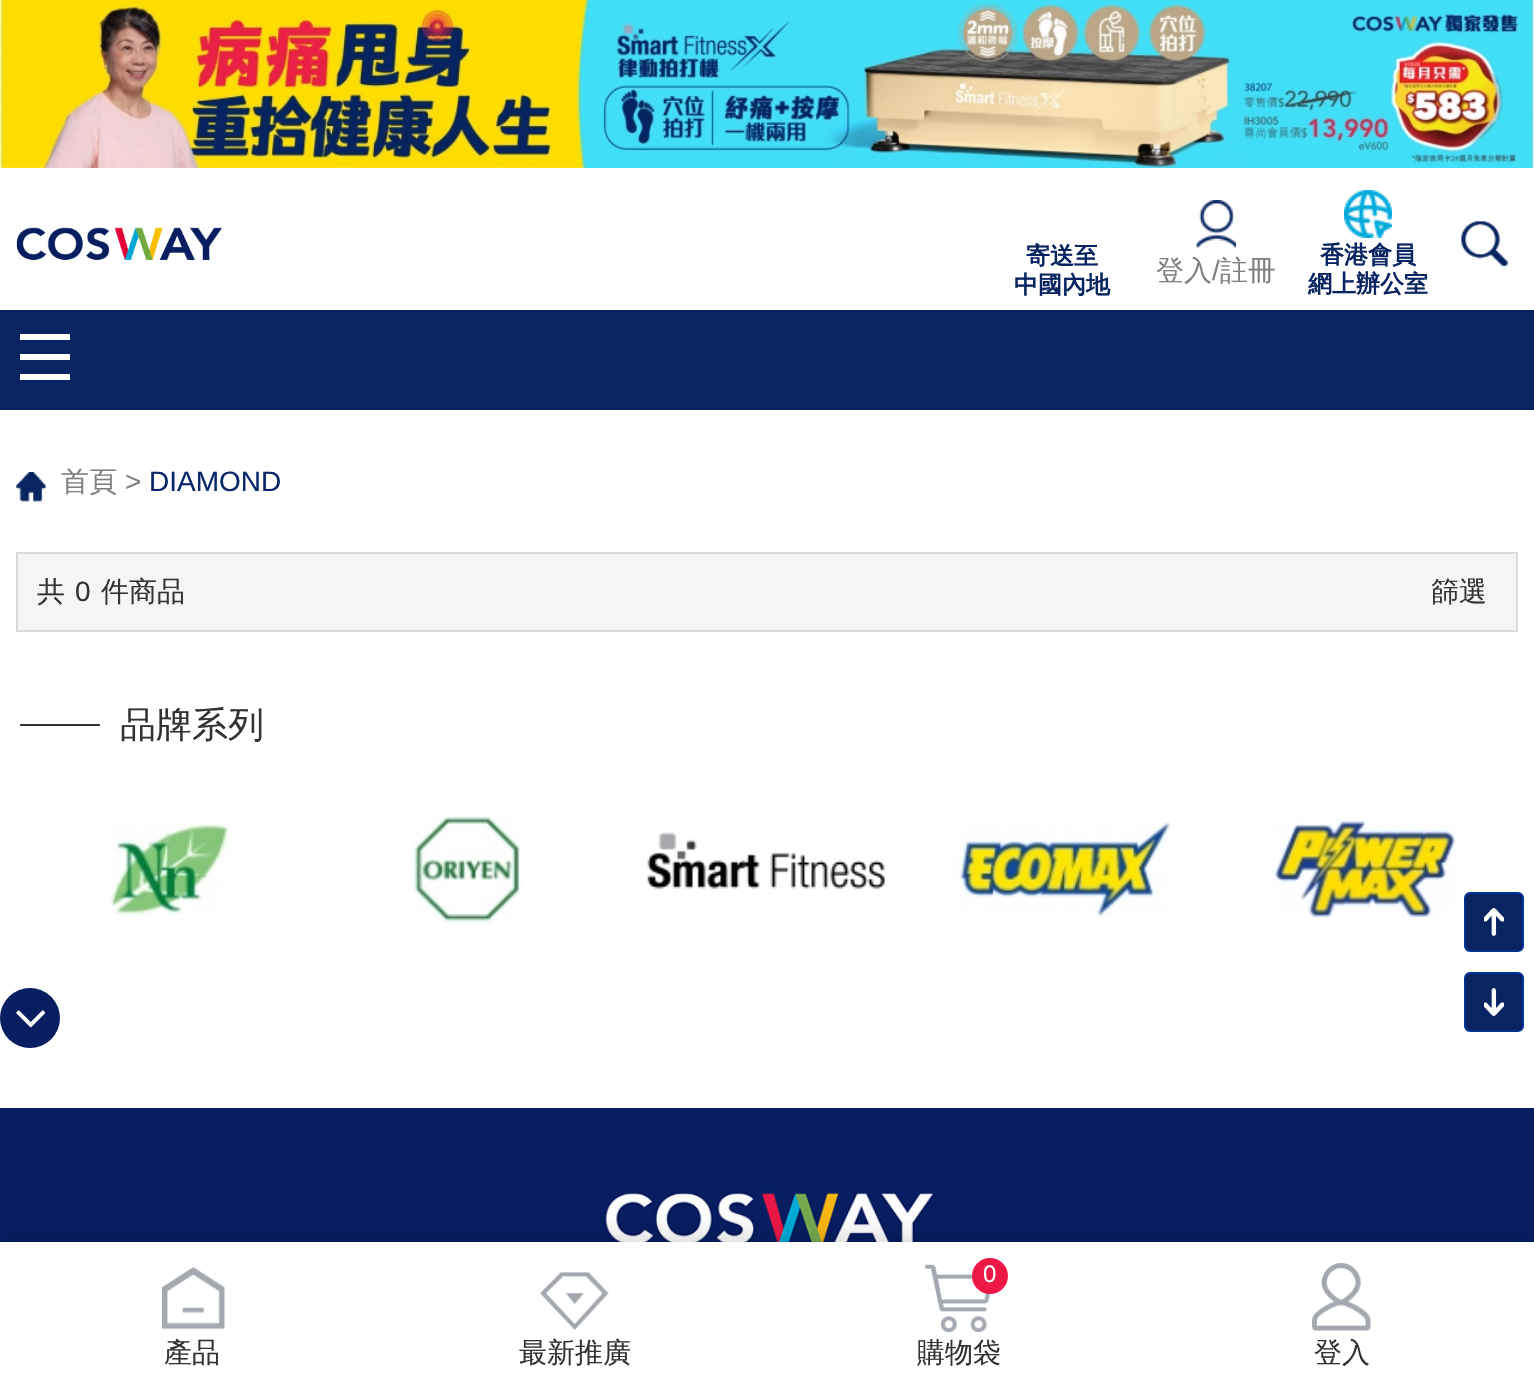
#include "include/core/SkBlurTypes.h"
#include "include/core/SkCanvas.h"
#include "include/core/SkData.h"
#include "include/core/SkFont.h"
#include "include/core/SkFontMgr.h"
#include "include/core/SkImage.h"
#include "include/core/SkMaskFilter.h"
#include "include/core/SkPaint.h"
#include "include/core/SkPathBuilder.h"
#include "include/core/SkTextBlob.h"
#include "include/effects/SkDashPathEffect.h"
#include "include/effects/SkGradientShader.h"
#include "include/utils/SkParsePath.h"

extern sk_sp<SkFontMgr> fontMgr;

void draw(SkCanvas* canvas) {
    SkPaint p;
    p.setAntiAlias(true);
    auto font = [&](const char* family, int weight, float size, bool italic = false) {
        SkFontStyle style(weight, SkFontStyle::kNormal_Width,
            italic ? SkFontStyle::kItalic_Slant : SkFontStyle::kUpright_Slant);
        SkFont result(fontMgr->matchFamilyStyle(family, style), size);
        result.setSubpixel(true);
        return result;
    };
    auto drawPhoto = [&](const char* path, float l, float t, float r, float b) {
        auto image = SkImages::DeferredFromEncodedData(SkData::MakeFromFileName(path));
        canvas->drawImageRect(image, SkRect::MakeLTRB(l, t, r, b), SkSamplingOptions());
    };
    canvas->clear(0xFFFFFFFF);
    drawPhoto("media/1.png", 0, 0, 1534, 168);
    drawPhoto("media/2.png", 16, 227, 222, 260);
    auto font1 = font("WenQuanYi Zen Hei", 700, 24);
    p.setColor(0xFF082561);
    canvas->drawString("寄送至", 1026, 264, font1, p);
    canvas->drawString("中國內地", 1014, 293, font1, p);
    drawPhoto("media/3.png", 1196, 200, 1236, 248);
    auto font2 = font("WenQuanYi Zen Hei", 500, 28);
    p.setColor(0xFF808080);
    canvas->drawString("登入", 1156, 280, font2, p);
    auto font3 = font("Liberation Sans", 400, 28);
    canvas->drawString("/", 1212, 280, font3, p);
    canvas->drawString("註冊", 1220, 280, font2, p);
    drawPhoto("media/4.png", 1344, 190, 1392, 238);
    p.setColor(0xFF082561);
    canvas->drawString("香港會員", 1320, 263, font1, p);
    canvas->drawString("網上辦公室", 1308, 292, font1, p);
    drawPhoto("media/5.png", 1461, 221, 1508, 266);
    {
        const struct { float l, t, r, b; SkColor color; } items[] = {
            {0, 310, 1534, 410, 0xFF082561},
            {20, 334, 70, 340, 0xFFFFFFFF},
            {20, 354, 70, 360, 0xFFFFFFFF},
            {20, 374, 70, 380, 0xFFFFFFFF},
        };
        for (auto [l, t, r, b, color] : items) {
            p.setColor(color);
            canvas->drawRect(SkRect::MakeLTRB(l, t, r, b), p);
        }
    }
    drawPhoto("media/6.png", 16, 472, 46, 502);
    p.setColor(0xFF808080);
    canvas->drawString("首頁", 61, 491, font2, p);
    canvas->drawString(">", 125, 491, font3, p);
    p.setColor(0xFF08286A);
    canvas->drawString("DIAMOND", 149, 491, font3, p);
    p.setStyle(SkPaint::kStroke_Style);
    p.setStrokeWidth(2);
    p.setColor(0xFFD7DBDE);
    canvas->drawRect(SkRect::MakeLTRB(17, 553, 1517, 631), p);
    p.setStyle(SkPaint::kFill_Style);
    p.setColor(0xFFF5F5F5);
    canvas->drawRect(SkRect::MakeLTRB(18, 554, 1516, 630), p);
    p.setColor(0xFF333333);
    canvas->drawString("共", 37, 601, font2, p);
    canvas->drawString("0", 75, 601, font3, p);
    canvas->drawString("件商品", 101, 601, font2, p);
    canvas->drawString("篩選", 1431, 601, font2, p);
    canvas->drawRect(SkRect::MakeLTRB(20, 724, 100, 726), p);
    auto font4 = font("WenQuanYi Zen Hei", 500, 36);
    canvas->drawString("品牌系列", 120, 737, font4, p);
    drawPhoto("media/7.png", 110, 823, 229, 915);
    drawPhoto("media/8.png", 413, 815, 522, 923);
    drawPhoto("media/9.png", 647, 832, 885, 889);
    drawPhoto("media/10.png", 954, 821, 1171, 917);
    drawPhoto("media/11.png", 1270, 820, 1455, 918);
    p.setColor(0xFF071E61);
    canvas->drawCircle(30, 1018, 30, p);
    drawPhoto("media/12.png", 16, 1010, 46, 1028);
    canvas->drawRect(SkRect::MakeLTRB(0, 1108, 1534, 1242), p);
    drawPhoto("media/13.png", 600, 1191, 940, 1242);
    p.setColor(0x33000000);
    p.setMaskFilter(SkMaskFilter::MakeBlur(kNormal_SkBlurStyle, 15));
    canvas->drawRect(SkRect::MakeLTRB(0, 1242, 1534, 1392), p);
    p.setMaskFilter(nullptr);
    p.setColor(0xFFFFFFFF);
    canvas->drawRect(SkRect::MakeLTRB(0, 1242, 1534, 1392), p);
    drawPhoto("media/14.png", 162, 1267, 225, 1330);
    p.setColor(0xFF333333);
    canvas->drawString("產品", 164, 1362, font2, p);
    drawPhoto("media/15.png", 540, 1272, 609, 1330);
    canvas->drawString("最新推廣", 519, 1362, font2, p);
    drawPhoto("media/16.png", 924, 1264, 991, 1332);
    p.setColor(0xFFED1846);
    canvas->drawCircle(990, 1276, 18, p);
    auto font5 = font("Liberation Sans", 400, 24);
    p.setColor(0xFFFFFFFF);
    canvas->drawString("0", 983, 1282, font5, p);
    p.setColor(0xFF333333);
    canvas->drawString("購物袋", 917, 1362, font2, p);
    drawPhoto("media/17.png", 1312, 1263, 1371, 1331);
    canvas->drawString("登入", 1314, 1362, font2, p);
    p.setColor(0xFF082561);
    canvas->drawRoundRect(SkRect::MakeLTRB(1465, 893, 1523, 951), 5, 5, p);
    p.setStyle(SkPaint::kStroke_Style);
    p.setColor(0xFF023194);
    canvas->drawRoundRect(SkRect::MakeLTRB(1465, 893, 1523, 951), 5, 5, p);
    drawPhoto("media/18.png", 1484, 908, 1504, 936);
    p.setStyle(SkPaint::kFill_Style);
    p.setColor(0xFF082561);
    canvas->drawRoundRect(SkRect::MakeLTRB(1465, 973, 1523, 1031), 5, 5, p);
    p.setStyle(SkPaint::kStroke_Style);
    p.setColor(0xFF023194);
    canvas->drawRoundRect(SkRect::MakeLTRB(1465, 973, 1523, 1031), 5, 5, p);
    drawPhoto("media/19.png", 1484, 988, 1504, 1016);
}
